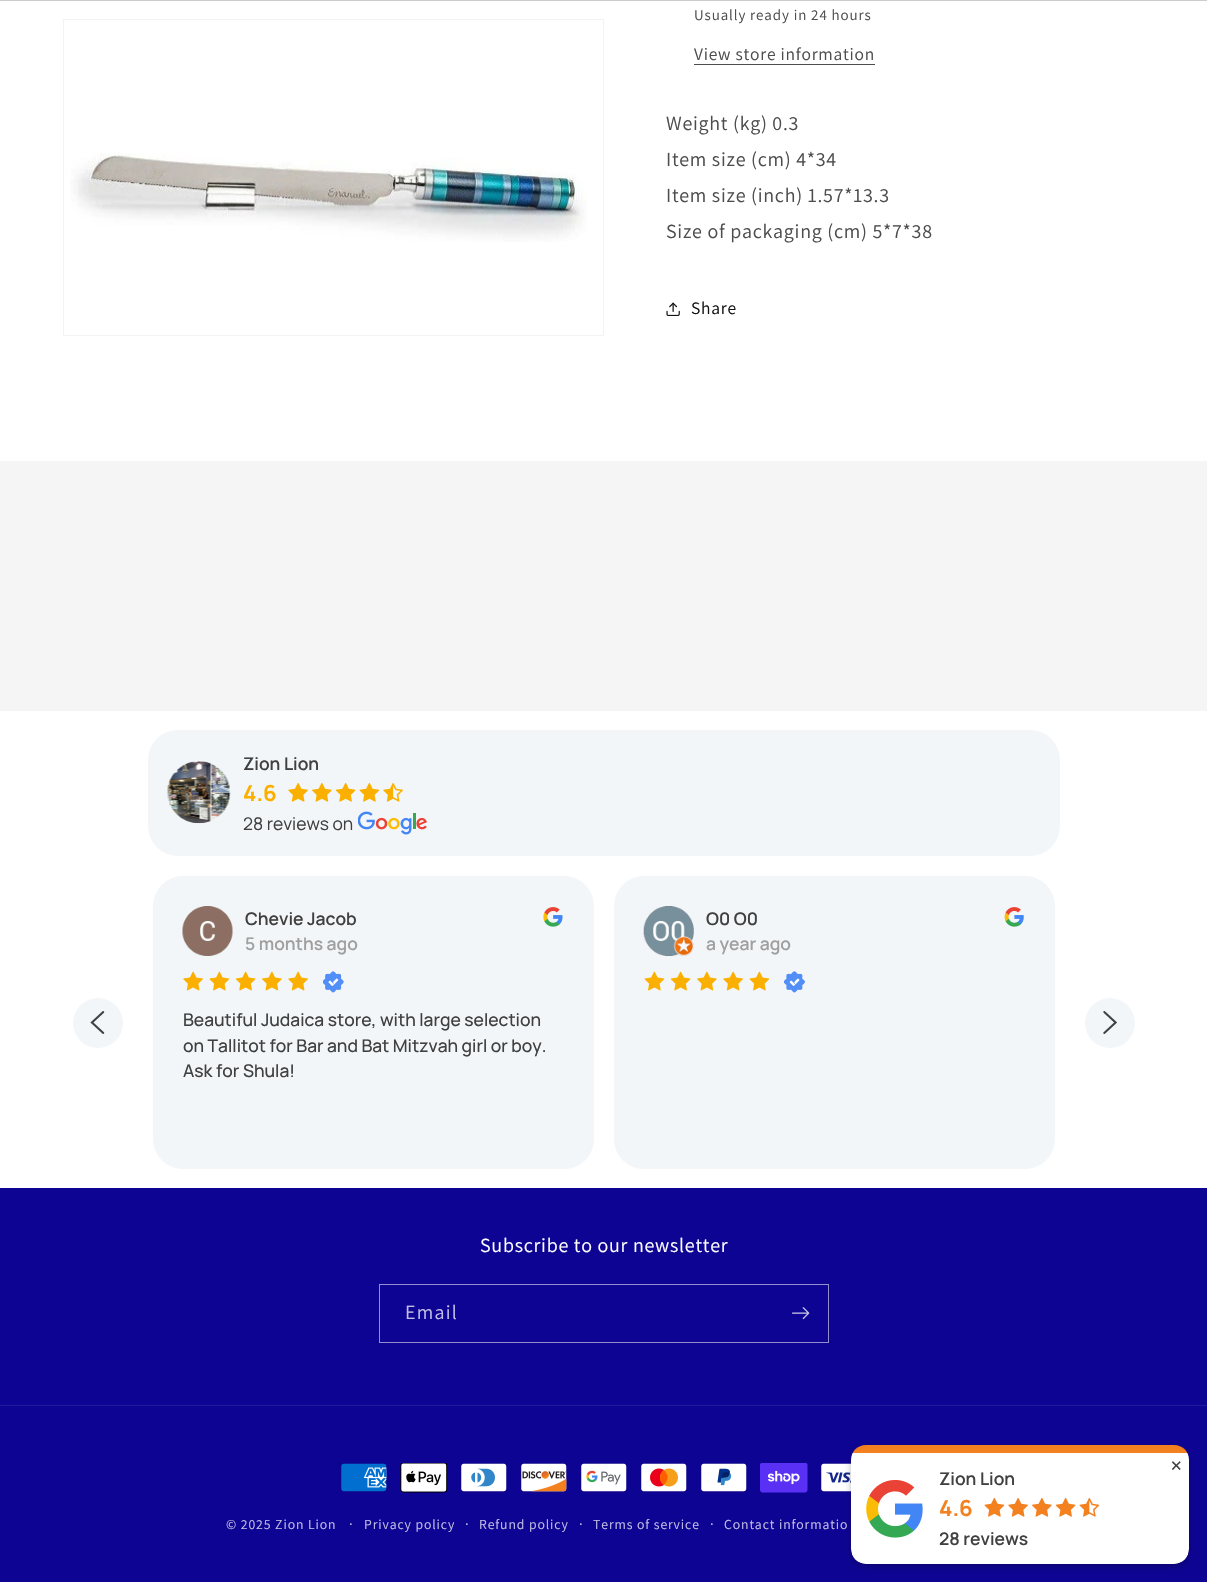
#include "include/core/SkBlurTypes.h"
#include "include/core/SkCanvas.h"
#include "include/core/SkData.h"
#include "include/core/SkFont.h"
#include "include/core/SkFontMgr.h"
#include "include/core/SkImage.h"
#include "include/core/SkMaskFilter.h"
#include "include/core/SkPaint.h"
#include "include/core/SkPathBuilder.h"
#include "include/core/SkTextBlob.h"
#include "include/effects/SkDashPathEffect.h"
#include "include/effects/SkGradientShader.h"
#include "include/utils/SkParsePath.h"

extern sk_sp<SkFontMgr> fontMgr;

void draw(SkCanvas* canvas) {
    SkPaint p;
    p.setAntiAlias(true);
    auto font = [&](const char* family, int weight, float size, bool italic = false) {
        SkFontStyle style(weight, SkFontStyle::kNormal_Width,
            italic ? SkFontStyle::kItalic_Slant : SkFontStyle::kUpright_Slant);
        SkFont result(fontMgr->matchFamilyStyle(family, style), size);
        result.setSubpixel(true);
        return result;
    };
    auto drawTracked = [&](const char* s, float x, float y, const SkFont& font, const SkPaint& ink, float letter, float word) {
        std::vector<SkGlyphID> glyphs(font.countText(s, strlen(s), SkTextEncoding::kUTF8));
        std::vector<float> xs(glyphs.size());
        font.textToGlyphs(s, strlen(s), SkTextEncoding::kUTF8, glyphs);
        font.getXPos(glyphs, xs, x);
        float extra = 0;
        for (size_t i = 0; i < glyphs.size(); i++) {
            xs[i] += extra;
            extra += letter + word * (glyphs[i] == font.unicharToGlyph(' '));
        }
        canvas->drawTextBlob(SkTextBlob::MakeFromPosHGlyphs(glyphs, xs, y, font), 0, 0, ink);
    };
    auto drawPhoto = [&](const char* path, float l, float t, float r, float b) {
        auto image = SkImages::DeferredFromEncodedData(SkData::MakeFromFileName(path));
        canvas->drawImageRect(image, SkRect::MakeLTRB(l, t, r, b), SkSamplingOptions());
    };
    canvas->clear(0xFFFFFFFF);
    p.setColor(0xFFCCCCCC);
    canvas->drawRect(SkRect::MakeLTRB(0, 0, 1207, 1), p);
    p.setStyle(SkPaint::kStroke_Style);
    p.setStrokeWidth(1);
    p.setColor(0xFFF3F3F3);
    canvas->drawRect(SkRect::MakeLTRB(63.5f, 19.5f, 603.5f, 335.5f), p);
    drawPhoto("media/1.png", 70, 153, 587, 242);
    auto font1 = font("Assistant", 400, 15);
    p.setStyle(SkPaint::kFill_Style);
    p.setColor(0xFF4D4D4D);
    drawTracked("Usually ready in 24 hours", 694, 20, font1, p, 0.9f, 0);
    auto font2 = font("Assistant", 400, 17.5f);
    drawTracked("View store information", 694, 60, font2, p, 0.75f, 0);
    canvas->drawRect(SkRect::MakeLTRB(694, 64, 875, 65), p);
    auto font3 = font("Assistant", 400, 20);
    {
        const struct { const char* s; float x, y; } items[] = {
            {"Weight (kg) 0.3", 666, 130},
            {"Item size (cm) 4*34", 666, 166},
            {"Item size (inch) 1.57*13.3", 666, 202},
            {"Size of packaging (cm) 5*7*38", 666, 238},
        };
        for (auto [s, x, y] : items) {
            drawTracked(s, x, y, font3, p, 0.75f, 0);
        }
    }
    drawPhoto("media/2.png", 666, 302, 680, 316);
    p.setColor(0xFF121212);
    drawTracked("Share", 691, 314, font2, p, 0.75f, 0);
    p.setColor(0xFFF5F5F5);
    canvas->drawRect(SkRect::MakeLTRB(0, 461, 1207, 711), p);
    p.setColor(0xFFF3F6F9);
    canvas->drawRoundRect(SkRect::MakeLTRB(148, 730, 1060, 856), 30, 30, p);
    drawPhoto("media/3.png", 167, 761, 231, 824);
    auto font4 = font("Manrope", 600, 17.5f);
    p.setColor(0xFF404040);
    canvas->drawString("Zion Lion", 243, 770, font4, p);
    auto font5 = font("Manrope", 700, 22);
    p.setColor(0xFFFBB000);
    canvas->drawString("4.6", 243, 801, font5, p);
    drawPhoto("media/4.png", 288, 783, 308, 802);
    drawPhoto("media/5.png", 312, 783, 332, 802);
    drawPhoto("media/6.png", 335, 783, 356, 802);
    drawPhoto("media/7.png", 359, 783, 380, 802);
    drawPhoto("media/8.png", 383, 783, 403, 802);
    auto font6 = font("Manrope", 400, 17.5f);
    p.setColor(0xFF404040);
    canvas->drawString("28 reviews on", 243, 830, font6, p);
    drawPhoto("media/9.png", 358, 811, 427, 835);
    p.setColor(0xFFF3F6F9);
    canvas->drawCircle(98, 1023, 25, p);
    drawPhoto("media/10.png", 90, 1011, 105, 1034);
    canvas->drawRoundRect(SkRect::MakeLTRB(153, 876, 594, 1169), 30, 30, p);
    drawPhoto("media/11.png", 182, 906, 233, 956);
    p.setColor(0xFF404040);
    canvas->drawString("Chevie Jacob", 245, 925, font4, p);
    p.setColor(0xFF9F9F9F);
    canvas->drawString("5 months ago", 245, 950, font4, p);
    drawPhoto("media/12.png", 543, 907, 563, 927);
    drawPhoto("media/13.png", 183, 971, 203, 991);
    drawPhoto("media/14.png", 209, 971, 230, 991);
    drawPhoto("media/15.png", 235, 971, 256, 991);
    drawPhoto("media/16.png", 262, 971, 282, 991);
    drawPhoto("media/13.png", 288, 971, 308, 991);
    drawPhoto("media/17.png", 323, 971, 344, 993);
    auto font7 = font("Manrope", 500, 17.5f);
    p.setColor(0xFF404040);
    {
        const struct { const char* s; float x, y; } items[] = {
            {"Beautiful Judaica store, with large selection", 183, 1026},
            {"on Tallitot for Bar and Bat Mitzvah girl or boy.", 183, 1052},
            {"Ask for Shula!", 183, 1077},
        };
        for (auto [s, x, y] : items) {
            canvas->drawString(s, x, y, font7, p);
        }
    }
    p.setColor(0xFFF3F6F9);
    canvas->drawRoundRect(SkRect::MakeLTRB(614, 876, 1055, 1169), 30, 30, p);
    drawPhoto("media/18.png", 643, 906, 694, 956);
    p.setColor(0xFF404040);
    canvas->drawString("O0 O0", 706, 925, font4, p);
    p.setColor(0xFF9F9F9F);
    canvas->drawString("a year ago", 706, 950, font4, p);
    drawPhoto("media/19.png", 1004, 907, 1024, 927);
    drawPhoto("media/14.png", 644, 971, 665, 991);
    drawPhoto("media/15.png", 670, 971, 691, 991);
    drawPhoto("media/16.png", 697, 971, 717, 991);
    drawPhoto("media/13.png", 723, 971, 743, 991);
    drawPhoto("media/14.png", 749, 971, 770, 991);
    drawPhoto("media/20.png", 784, 971, 805, 993);
    p.setColor(0xFFF3F6F9);
    canvas->drawCircle(1110, 1023, 25, p);
    drawPhoto("media/21.png", 1103, 1011, 1117, 1034);
    p.setColor(0xFF0E0493);
    canvas->drawRect(SkRect::MakeLTRB(0, 1188, 1207, 1582), p);
    p.setColor(0xFFFFFFFF);
    drawTracked("Subscribe to our newsletter", 480, 1252, font3, p, 0.75f, 0);
    p.setStyle(SkPaint::kStroke_Style);
    p.setColor(0xFF938ECE);
    canvas->drawRect(SkRect::MakeLTRB(379.5f, 1284.5f, 828.5f, 1342.5f), p);
    p.setStyle(SkPaint::kFill_Style);
    p.setColor(0xFFC3C0E4);
    drawTracked("Email", 405, 1319, font3, p, 1.25f, 0);
    drawPhoto("media/22.png", 792, 1307, 810, 1320);
    p.setColor(0xFF21189C);
    canvas->drawRect(SkRect::MakeLTRB(0, 1405, 1207, 1406), p);
    drawPhoto("media/23.png", 340, 1463, 388, 1493);
    drawPhoto("media/24.png", 400, 1463, 448, 1493);
    drawPhoto("media/25.png", 460, 1463, 508, 1493);
    drawPhoto("media/26.png", 520, 1463, 568, 1493);
    drawPhoto("media/27.png", 580, 1463, 628, 1493);
    drawPhoto("media/28.png", 640, 1463, 688, 1493);
    drawPhoto("media/29.png", 700, 1463, 748, 1493);
    drawPhoto("media/30.png", 760, 1463, 808, 1493);
    drawPhoto("media/31.png", 820, 1463, 851, 1493);
    auto font8 = font("Assistant", 400, 13.75f);
    p.setColor(0xFFC3C0E4);
    drawTracked("© 2025 Zion Lion", 226, 1529, font8, p, 0.9f, 0);
    drawTracked("·", 349, 1529, font1, p, 0.9f, 0);
    drawTracked("Privacy policy", 364, 1529, font8, p, 0.9f, 0);
    drawTracked("·", 465, 1529, font1, p, 0.9f, 0);
    drawTracked("Refund policy", 479, 1529, font8, p, 0.9f, 0);
    drawTracked("·", 579, 1529, font1, p, 0.9f, 0);
    drawTracked("Terms of service", 593, 1529, font8, p, 0.9f, 0);
    drawTracked("·", 710, 1529, font1, p, 0.9f, 0);
    drawTracked("Contact informatio", 724, 1529, font8, p, 0.9f, 0);
    p.setColor(0x42000000);
    p.setMaskFilter(SkMaskFilter::MakeBlur(kNormal_SkBlurStyle, 3));
    canvas->drawRoundRect(SkRect::MakeLTRB(851, 1448, 1189, 1566), 15, 15, p);
    p.setMaskFilter(nullptr);
    canvas->save();
    canvas->clipPath(SkPathBuilder().moveTo(866, 1445).lineTo(1174, 1445).cubicTo(1182.5f, 1445, 1189, 1451.5f, 1189, 1460).lineTo(1189, 1549).cubicTo(1189, 1557.5f, 1182.5f, 1564, 1174, 1564).lineTo(866, 1564).cubicTo(857.5f, 1564, 851, 1557.5f, 851, 1549).lineTo(851, 1460).cubicTo(851, 1451.5f, 857.5f, 1445, 866, 1445).close().detach(), true);
    p.setColor(0xFFF48120);
    canvas->drawRect(SkRect::MakeLTRB(851, 1445, 1189, 1453), p);
    p.setColor(0xFFFFFFFF);
    canvas->drawPath(SkPathBuilder().moveTo(851, 1453).lineTo(1189, 1453).lineTo(1189, 1549).cubicTo(1189, 1557.5f, 1182.5f, 1564, 1174, 1564).lineTo(866, 1564).cubicTo(857.5f, 1564, 851, 1557.5f, 851, 1549).close().detach(), p);
    canvas->restore();
    auto font9 = font("DejaVu Sans", 400, 15);
    p.setColor(0xFF404040);
    canvas->drawString("✕", 1170, 1471, font9, p);
    drawPhoto("media/32.png", 866, 1479, 923, 1538);
    canvas->drawString("Zion Lion", 939, 1485, font4, p);
    p.setColor(0xFFF48120);
    canvas->drawString("4.6", 939, 1516, font5, p);
    drawPhoto("media/33.png", 984, 1498, 1005, 1517);
    drawPhoto("media/34.png", 1008, 1498, 1028, 1517);
    drawPhoto("media/35.png", 1032, 1498, 1052, 1517);
    drawPhoto("media/36.png", 1055, 1498, 1076, 1517);
    drawPhoto("media/37.png", 1079, 1498, 1100, 1517);
    p.setColor(0xFF404040);
    canvas->drawString("28 reviews", 939, 1545, font4, p);
}
